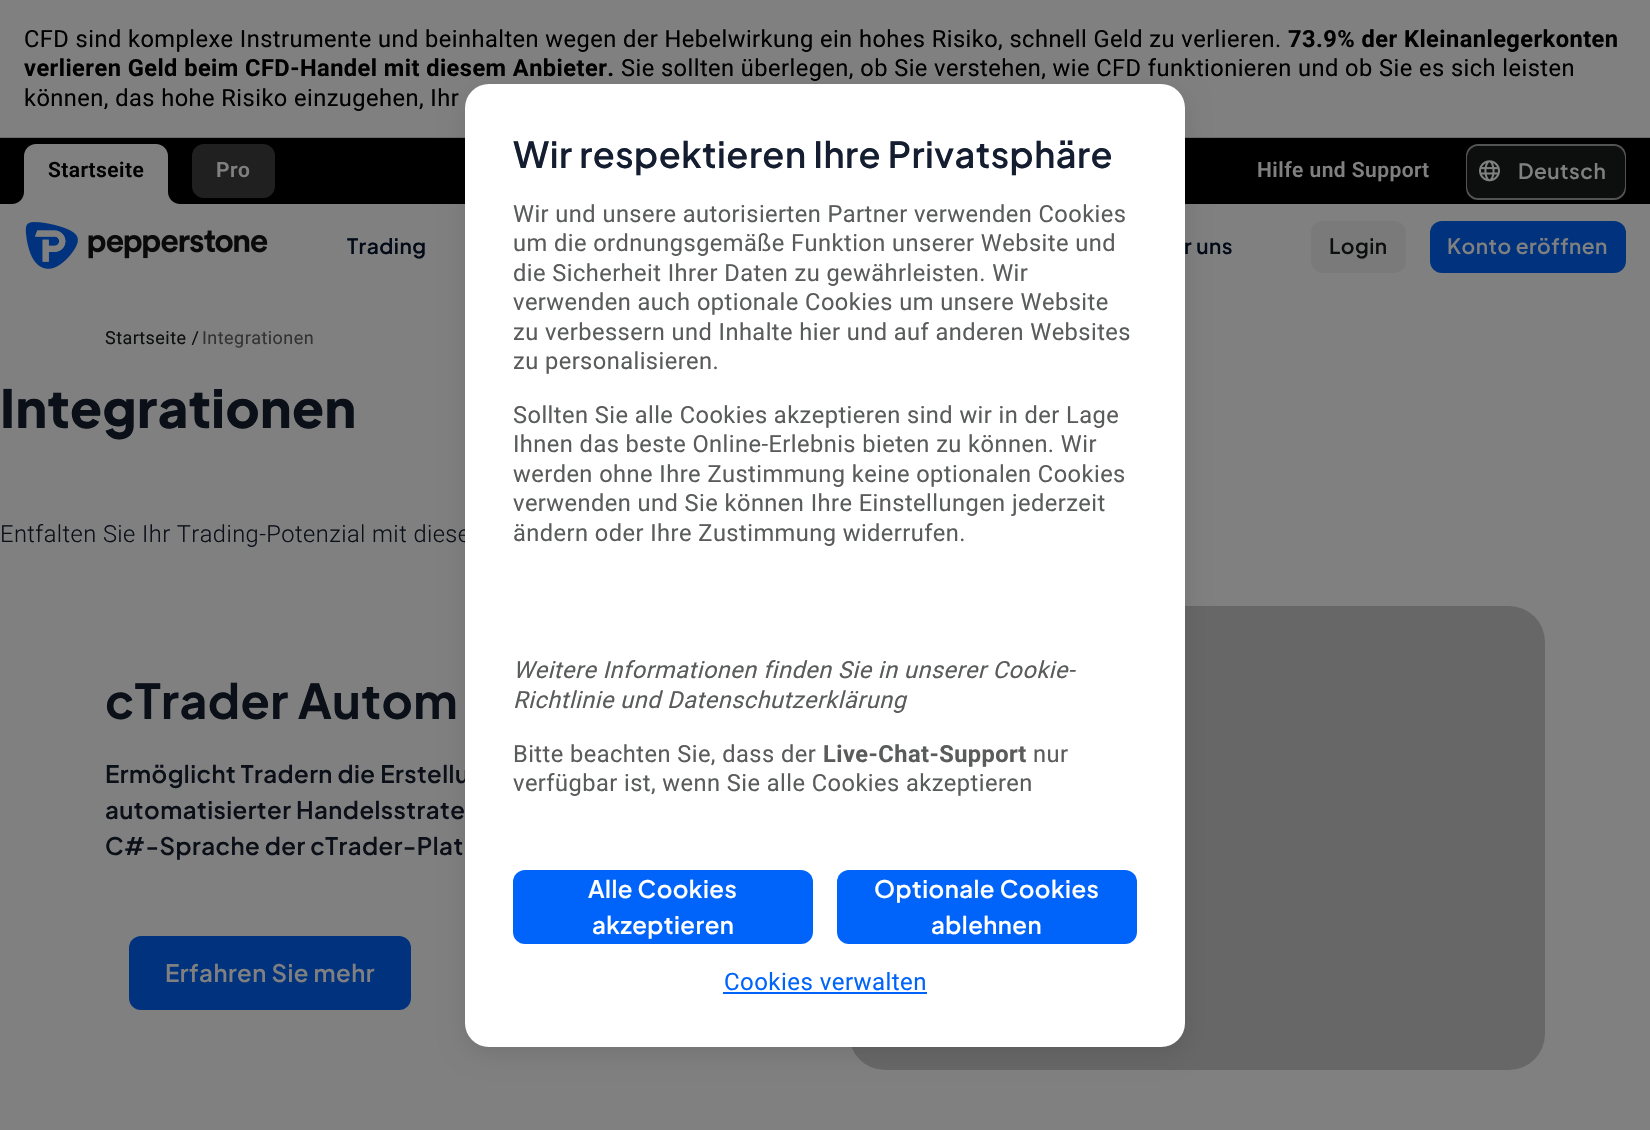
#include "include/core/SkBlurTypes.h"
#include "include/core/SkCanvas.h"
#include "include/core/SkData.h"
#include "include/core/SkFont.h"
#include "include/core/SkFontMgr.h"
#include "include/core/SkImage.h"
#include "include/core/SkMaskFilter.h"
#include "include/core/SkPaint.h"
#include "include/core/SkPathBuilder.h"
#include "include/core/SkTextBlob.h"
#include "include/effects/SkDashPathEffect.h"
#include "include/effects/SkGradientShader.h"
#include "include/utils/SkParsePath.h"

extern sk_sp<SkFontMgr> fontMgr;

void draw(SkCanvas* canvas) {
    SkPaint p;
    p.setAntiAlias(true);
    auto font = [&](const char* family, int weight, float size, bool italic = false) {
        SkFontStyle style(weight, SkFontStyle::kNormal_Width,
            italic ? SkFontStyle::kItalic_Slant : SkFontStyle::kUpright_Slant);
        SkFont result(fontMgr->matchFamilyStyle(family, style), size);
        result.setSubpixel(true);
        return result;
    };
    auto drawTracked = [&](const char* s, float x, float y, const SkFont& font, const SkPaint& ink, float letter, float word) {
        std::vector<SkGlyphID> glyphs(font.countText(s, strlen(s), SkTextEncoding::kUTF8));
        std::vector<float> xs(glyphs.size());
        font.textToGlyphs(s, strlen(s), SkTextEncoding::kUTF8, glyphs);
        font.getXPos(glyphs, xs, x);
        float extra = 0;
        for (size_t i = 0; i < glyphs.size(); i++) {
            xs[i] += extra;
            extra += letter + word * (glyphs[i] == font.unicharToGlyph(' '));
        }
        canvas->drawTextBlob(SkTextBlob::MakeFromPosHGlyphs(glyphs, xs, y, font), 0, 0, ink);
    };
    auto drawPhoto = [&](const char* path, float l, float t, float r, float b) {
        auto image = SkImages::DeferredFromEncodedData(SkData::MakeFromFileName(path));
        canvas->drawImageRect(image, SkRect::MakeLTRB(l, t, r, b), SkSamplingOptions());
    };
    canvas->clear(0xFF808080);
    p.setColor(0xFF6B6B6B);
    canvas->drawRect(SkRect::MakeLTRB(0, 137, 1650, 138), p);
    auto font1 = font("Roboto", 400, 23.62f);
    p.setColor(0xFF000000);
    drawTracked("CFD sind komplexe Instrumente und beinhalten wegen der Hebelwirkung ein hohes Risiko, schnell Geld zu verlieren.", 24, 47, font1, p, 0.45f, 0);
    auto font2 = font("Roboto", 700, 23.62f);
    drawTracked("73.9% der Kleinanlegerkonten", 1288, 47, font2, p, 0.45f, 0);
    drawTracked("verlieren Geld beim CFD-Handel mit diesem Anbieter.", 24, 76, font2, p, 0.45f, 0);
    drawTracked("Sie sollten überlegen, ob Sie verstehen, wie CFD funktionieren und ob Sie es sich leisten", 621, 76, font1, p, 0.45f, 0);
    drawTracked("können, das hohe Risiko einzugehen, Ihr", 24, 106, font1, p, 0.45f, 0);
    canvas->drawRect(SkRect::MakeLTRB(0, 138, 1650, 204), p);
    p.setColor(0xFF808080);
    canvas->drawPath(SkPathBuilder().moveTo(36, 144).lineTo(156, 144).cubicTo(162.5f, 144, 168, 149.5f, 168, 156).lineTo(168, 204).lineTo(24, 204).lineTo(24, 156).cubicTo(24, 149.5f, 29.5f, 144, 36, 144).close().detach(), p);
    auto font3 = font("Roboto", 600, 21);
    p.setColor(0xFF000000);
    drawTracked("Startseite", 48, 177, font3, p, 0.45f, 0);
    p.setColor(0xFF808080);
    canvas->drawRect(SkRect::MakeLTRB(12, 192, 24, 204), p);
    p.setColor(0xFF000000);
    canvas->drawPath(SkPathBuilder().moveTo(12, 180).cubicTo(18.5f, 180, 24, 185.5f, 24, 192).cubicTo(24, 198.5f, 18.5f, 204, 12, 204).close().detach(), p);
    p.setColor(0xFF808080);
    canvas->drawRect(SkRect::MakeLTRB(168, 192, 180, 204), p);
    p.setColor(0xFF000000);
    canvas->drawPath(SkPathBuilder().moveTo(180, 180).lineTo(180, 204).cubicTo(173.5f, 204, 168, 198.5f, 168, 192).cubicTo(168, 185.5f, 173.5f, 180, 180, 180).close().detach(), p);
    p.setColor(0xFF202020);
    canvas->drawRoundRect(SkRect::MakeLTRB(192, 144, 275, 198), 12, 12, p);
    p.setColor(0xFF808080);
    drawTracked("Pro", 216, 177, font3, p, 0.45f, 0);
    drawTracked("Hilfe und Support", 1257, 177, font3, p, 0.45f, 0);
    p.setStyle(SkPaint::kStroke_Style);
    p.setStrokeWidth(2);
    p.setColor(0xFF535353);
    canvas->drawRoundRect(SkRect::MakeLTRB(1467, 145, 1625, 199), 11, 11, p);
    p.setStyle(SkPaint::kFill_Style);
    p.setColor(0xFF0D0E0E);
    canvas->drawRoundRect(SkRect::MakeLTRB(1467, 146, 1625, 198), 12, 12, p);
    drawPhoto("media/1.png", 1479, 160, 1500, 182);
    auto font4 = font("Plus Jakarta Sans", 600, 21);
    p.setColor(0xFF808080);
    drawTracked("Deutsch", 1518, 179, font4, p, 0.45f, 0);
    drawPhoto("media/2.png", 25, 222, 268, 269);
    p.setColor(0xFF020A17);
    drawTracked("Trading", 347, 254, font4, p, 0.45f, 0);
    drawTracked("r uns", 1184, 254, font4, p, 0.45f, 0);
    p.setColor(0xFF7A7A7A);
    canvas->drawRoundRect(SkRect::MakeLTRB(1311, 221, 1406, 273), 12, 12, p);
    p.setColor(0xFF0D0E0E);
    drawTracked("Login", 1329, 254, font4, p, 0.45f, 0);
    p.setColor(0xFF00327D);
    canvas->drawRoundRect(SkRect::MakeLTRB(1430, 221, 1626, 273), 12, 12, p);
    p.setColor(0xFF808080);
    drawTracked("Konto eröffnen", 1447, 254, font4, p, 0.45f, 0);
    auto font5 = font("Roboto", 400, 18);
    p.setColor(0xFF0D0E0E);
    drawTracked("Startseite /", 105, 344, font5, p, 0.45f, 0);
    p.setColor(0xFF333333);
    drawTracked("Integrationen", 202, 344, font5, p, 0.45f, 0);
    auto font6 = font("Plus Jakarta Sans", 800, 52.5f);
    p.setColor(0xFF0A0F18);
    drawTracked("Integrationen", 0, 428, font6, p, 0.45f, 0);
    auto font7 = font("Roboto", 300, 23.62f);
    drawTracked("Entfalten Sie Ihr Trading-Potenzial mit diese", 0, 542, font7, p, 0.45f, 0);
    auto font8 = font("Plus Jakarta Sans", 700, 48);
    drawTracked("cTrader Autom", 105, 719, font8, p, 0.45f, 0);
    auto font9 = font("Plus Jakarta Sans", 600, 24);
    {
        const struct { const char* s; float x, y; } items[] = {
            {"Ermöglicht Tradern die Erstellu", 105, 783},
            {"automatisierter Handelsstrate", 105, 819},
            {"C#-Sprache der cTrader-Plat", 105, 855},
        };
        for (auto [s, x, y] : items) {
            drawTracked(s, x, y, font9, p, 0.45f, 0);
        }
    }
    p.setColor(0xFF00327D);
    canvas->drawRoundRect(SkRect::MakeLTRB(129, 936, 411, 1010), 12, 12, p);
    p.setColor(0xFF808080);
    drawTracked("Erfahren Sie mehr", 165, 982, font9, p, 0.45f, 0);
    p.setColor(0xFF676767);
    canvas->drawRoundRect(SkRect::MakeLTRB(849, 606, 1545, 1070), 36, 36, p);
    p.setColor(0x1A000000);
    p.setMaskFilter(SkMaskFilter::MakeBlur(kNormal_SkBlurStyle, 12));
    canvas->drawRoundRect(SkRect::MakeLTRB(465, 90, 1185, 1053), 24, 24, p);
    p.setMaskFilter(nullptr);
    p.setColor(0xFFFFFFFF);
    canvas->drawRoundRect(SkRect::MakeLTRB(465, 84, 1185, 1047), 24, 24, p);
    auto font10 = font("Plus Jakarta Sans", 600, 36);
    p.setColor(0xFF141E30);
    drawTracked("Wir respektieren Ihre Privatsphäre", 513, 168, font10, p, 0.45f, 0);
    p.setColor(0xFF5A5B5B);
    {
        const struct { const char* s; float x, y; } items[] = {
            {"Wir und unsere autorisierten Partner verwenden Cookies", 513, 222},
            {"um die ordnungsgemäße Funktion unserer Website und", 513, 251},
            {"die Sicherheit Ihrer Daten zu gewährleisten. Wir", 513, 281},
            {"verwenden auch optionale Cookies um unsere Website", 513, 310},
            {"zu verbessern und Inhalte hier und auf anderen Websites", 513, 340},
            {"zu personalisieren.", 513, 369},
            {"Sollten Sie alle Cookies akzeptieren sind wir in der Lage", 513, 423},
            {"Ihnen das beste Online-Erlebnis bieten zu können. Wir", 513, 452},
            {"werden ohne Ihre Zustimmung keine optionalen Cookies", 513, 482},
            {"verwenden und Sie können Ihre Einstellungen jederzeit", 513, 511},
            {"ändern oder Ihre Zustimmung widerrufen.", 513, 541},
        };
        for (auto [s, x, y] : items) {
            drawTracked(s, x, y, font1, p, 0.45f, 0);
        }
    }
    auto font11 = font("Roboto", 400, 23.62f, true);
    drawTracked("Weitere Informationen finden Sie in unserer Cookie-", 513, 678, font11, p, 0.45f, 0);
    drawTracked("Richtlinie und Datenschutzerklärung", 513, 708, font11, p, 0.45f, 0);
    drawTracked("Bitte beachten Sie, dass der", 513, 762, font1, p, 0.45f, 0);
    drawTracked("Live-Chat-Support", 823, 762, font2, p, 0.45f, 0);
    drawTracked("nur", 1033, 762, font1, p, 0.45f, 0);
    drawTracked("verfügbar ist, wenn Sie alle Cookies akzeptieren", 513, 791, font1, p, 0.45f, 0);
    p.setColor(0xFF0064FA);
    canvas->drawRoundRect(SkRect::MakeLTRB(513, 870, 813, 944), 12, 12, p);
    p.setColor(0xFFFFFFFF);
    drawTracked("Alle Cookies", 588, 898, font9, p, 0.45f, 0);
    drawTracked("akzeptieren", 592, 934, font9, p, 0.45f, 0);
    p.setColor(0xFF0064FA);
    canvas->drawRoundRect(SkRect::MakeLTRB(837, 870, 1137, 944), 12, 12, p);
    p.setColor(0xFFFFFFFF);
    drawTracked("Optionale Cookies", 874, 898, font9, p, 0.45f, 0);
    drawTracked("ablehnen", 931, 934, font9, p, 0.45f, 0);
    auto font12 = font("Roboto", 400, 24);
    p.setColor(0xFF0064FA);
    drawTracked("Cookies verwalten", 724, 990, font12, p, 0.45f, 0);
    canvas->drawRect(SkRect::MakeLTRB(723, 992, 927, 994), p);
}
